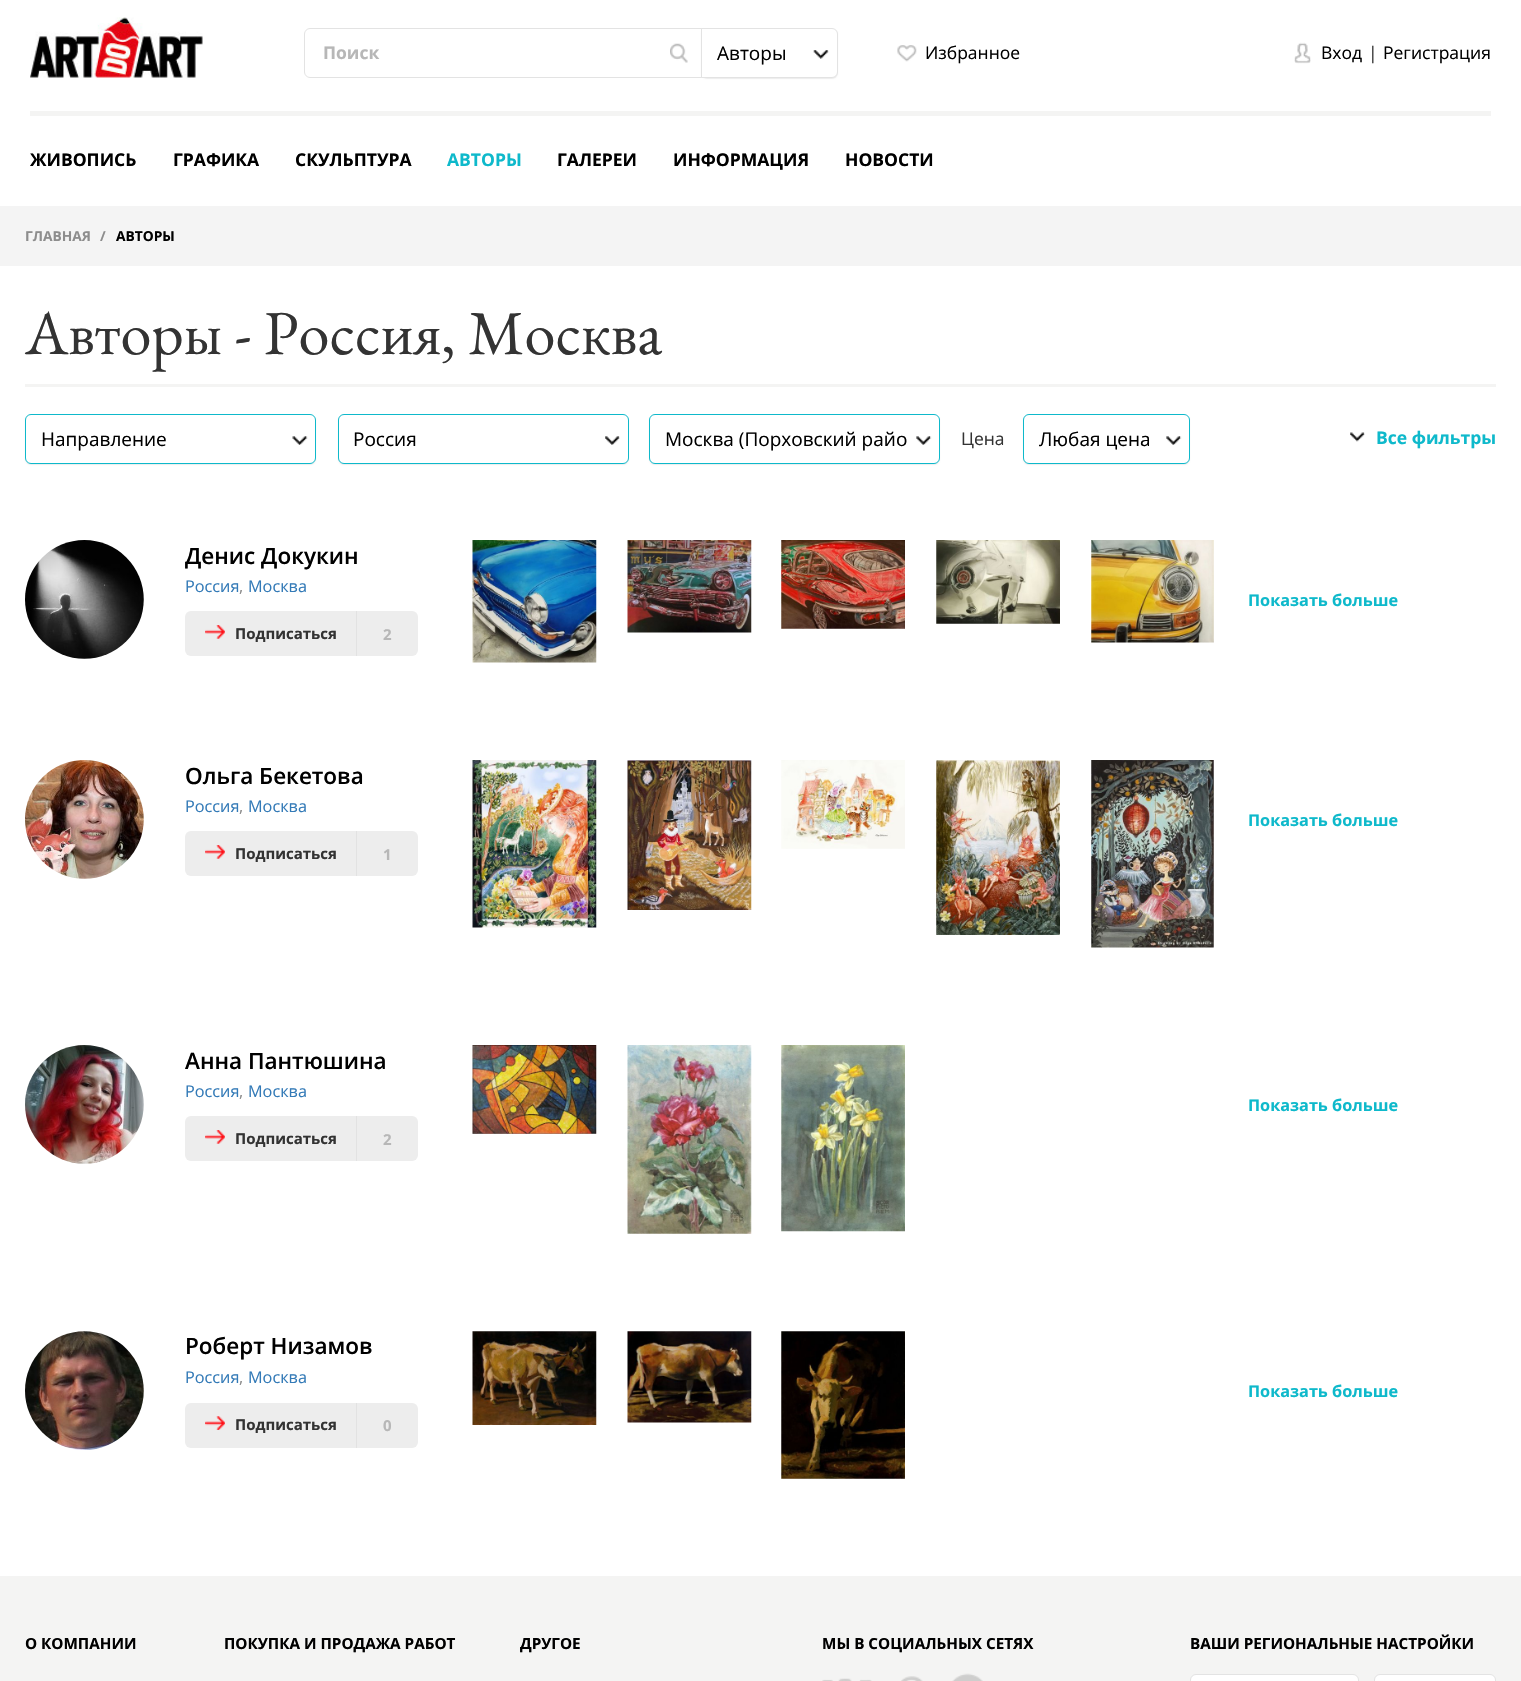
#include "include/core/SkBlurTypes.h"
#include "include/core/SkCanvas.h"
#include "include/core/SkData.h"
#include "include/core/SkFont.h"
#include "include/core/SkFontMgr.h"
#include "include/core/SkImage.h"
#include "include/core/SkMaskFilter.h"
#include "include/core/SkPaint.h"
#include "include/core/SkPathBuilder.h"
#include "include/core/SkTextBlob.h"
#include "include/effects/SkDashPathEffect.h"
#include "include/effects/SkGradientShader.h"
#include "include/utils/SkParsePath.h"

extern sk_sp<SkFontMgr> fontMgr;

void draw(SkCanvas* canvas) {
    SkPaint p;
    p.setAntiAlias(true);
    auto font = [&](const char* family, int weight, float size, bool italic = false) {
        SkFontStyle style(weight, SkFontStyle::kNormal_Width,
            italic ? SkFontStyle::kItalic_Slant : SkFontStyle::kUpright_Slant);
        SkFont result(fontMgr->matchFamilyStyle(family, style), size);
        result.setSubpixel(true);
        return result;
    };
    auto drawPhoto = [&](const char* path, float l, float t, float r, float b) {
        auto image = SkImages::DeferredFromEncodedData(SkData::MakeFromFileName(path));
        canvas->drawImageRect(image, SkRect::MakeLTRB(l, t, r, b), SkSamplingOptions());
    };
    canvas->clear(0xFFFFFFFF);
    drawPhoto("media/1.png", 30, 17, 203, 78);
    p.setStyle(SkPaint::kStroke_Style);
    p.setStrokeWidth(1);
    p.setColor(0xFFE3E3E3);
    canvas->drawPath(SkPathBuilder().moveTo(310, 28.5f).lineTo(702.5f, 28.5f).lineTo(702.5f, 77.5f).lineTo(310, 77.5f).cubicTo(307, 77.5f, 304.5f, 75, 304.5f, 72).lineTo(304.5f, 34).cubicTo(304.5f, 31, 307, 28.5f, 310, 28.5f).close().detach(), p);
    auto font1 = font("Open Sans", 700, 17.5f);
    p.setStyle(SkPaint::kFill_Style);
    p.setColor(0xFFB7B7B7);
    canvas->drawString("Поиск", 323, 59, font1, p);
    drawPhoto("media/2.png", 670, 43, 688, 63);
    p.setColor(0x12000000);
    p.setMaskFilter(SkMaskFilter::MakeBlur(kNormal_SkBlurStyle, 0.5f));
    canvas->drawRoundRect(SkRect::MakeLTRB(701, 29, 838, 79), 6, 6, p);
    p.setMaskFilter(nullptr);
    p.setColor(0xFFFFFFFF);
    canvas->drawPath(SkPathBuilder().moveTo(701.5f, 28.5f).lineTo(832, 28.5f).cubicTo(835, 28.5f, 837.5f, 31, 837.5f, 34).lineTo(837.5f, 72).cubicTo(837.5f, 75, 835, 77.5f, 832, 77.5f).lineTo(701.5f, 77.5f).close().detach(), p);
    p.setStyle(SkPaint::kStroke_Style);
    p.setColor(0xFFE3E3E3);
    canvas->drawPath(SkPathBuilder().moveTo(701.5f, 28.5f).lineTo(832, 28.5f).cubicTo(835, 28.5f, 837.5f, 31, 837.5f, 34).lineTo(837.5f, 72).cubicTo(837.5f, 75, 835, 77.5f, 832, 77.5f).lineTo(701.5f, 77.5f).close().detach(), p);
    auto font2 = font("Open Sans", 400, 19);
    p.setStyle(SkPaint::kFill_Style);
    p.setColor(0xFF000000);
    canvas->drawString("Авторы", 717, 60, font2, p);
    drawPhoto("media/3.png", 813, 50, 829, 59);
    drawPhoto("media/4.png", 897, 45, 917, 62);
    auto font3 = font("Open Sans", 400, 17.5f);
    canvas->drawString("Избранное", 925, 59, font3, p);
    drawPhoto("media/5.png", 1294, 42, 1311, 64);
    canvas->drawString("Вход", 1321, 59, font3, p);
    p.setColor(0xFF333333);
    canvas->drawString("|", 1368, 59, font3, p);
    p.setColor(0xFF000000);
    canvas->drawString("Регистрация", 1383, 59, font3, p);
    p.setColor(0xFFF4F4F3);
    canvas->drawRect(SkRect::MakeLTRB(30, 111, 1491, 116), p);
    p.setColor(0xFF000000);
    {
        const struct { const char* s; float x, y; } items[] = {
            {"ЖИВОПИСЬ", 30, 166},
            {"ГРАФИКА", 173, 166},
            {"СКУЛЬПТУРА", 295, 166},
        };
        for (auto [s, x, y] : items) {
            canvas->drawString(s, x, y, font1, p);
        }
    }
    p.setColor(0xFF0EB9CB);
    canvas->drawString("АВТОРЫ", 447, 166, font1, p);
    p.setColor(0xFF000000);
    {
        const struct { const char* s; float x, y; } items[] = {
            {"ГАЛЕРЕИ", 557, 166},
            {"ИНФОРМАЦИЯ", 673, 166},
            {"НОВОСТИ", 845, 166},
        };
        for (auto [s, x, y] : items) {
            canvas->drawString(s, x, y, font1, p);
        }
    }
    p.setColor(0xFFF4F4F4);
    canvas->drawRect(SkRect::MakeLTRB(0, 206, 1521, 266), p);
    auto font4 = font("Open Sans", 700, 13.75f);
    p.setColor(0xFF8D8D8D);
    canvas->drawString("ГЛАВНАЯ", 25, 241, font4, p);
    canvas->drawString("/", 100, 241, font4, p);
    p.setColor(0xFF000000);
    canvas->drawString("АВТОРЫ", 116, 241, font4, p);
    p.setColor(0xFFF4F4F3);
    canvas->drawRect(SkRect::MakeLTRB(25, 384, 1496, 387), p);
    auto font5 = font("EB Garamond", 400, 62.5f);
    p.setColor(0xFF333333);
    canvas->drawString("Авторы - Россия, Москва", 25, 354, font5, p);
    p.setColor(0x12000000);
    p.setMaskFilter(SkMaskFilter::MakeBlur(kNormal_SkBlurStyle, 0.5f));
    canvas->drawRoundRect(SkRect::MakeLTRB(25, 415, 316, 465), 6, 6, p);
    p.setMaskFilter(nullptr);
    p.setColor(0xFFFFFFFF);
    canvas->drawRoundRect(SkRect::MakeLTRB(25.5f, 414.5f, 315.5f, 463.5f), 5.5f, 5.5f, p);
    p.setStyle(SkPaint::kStroke_Style);
    p.setColor(0xFF0EB9CB);
    canvas->drawRoundRect(SkRect::MakeLTRB(25.5f, 414.5f, 315.5f, 463.5f), 5.5f, 5.5f, p);
    p.setStyle(SkPaint::kFill_Style);
    p.setColor(0xFF000000);
    canvas->drawString("Направление", 41, 446, font2, p);
    drawPhoto("media/6.png", 292, 436, 308, 445);
    p.setColor(0x12000000);
    p.setMaskFilter(SkMaskFilter::MakeBlur(kNormal_SkBlurStyle, 0.5f));
    canvas->drawRoundRect(SkRect::MakeLTRB(338, 415, 629, 465), 6, 6, p);
    p.setMaskFilter(nullptr);
    p.setColor(0xFFFFFFFF);
    canvas->drawRoundRect(SkRect::MakeLTRB(338.5f, 414.5f, 628.5f, 463.5f), 5.5f, 5.5f, p);
    p.setStyle(SkPaint::kStroke_Style);
    p.setColor(0xFF0EB9CB);
    canvas->drawRoundRect(SkRect::MakeLTRB(338.5f, 414.5f, 628.5f, 463.5f), 5.5f, 5.5f, p);
    p.setStyle(SkPaint::kFill_Style);
    p.setColor(0xFF000000);
    canvas->drawString("Россия", 353, 446, font2, p);
    drawPhoto("media/7.png", 605, 436, 620, 445);
    p.setColor(0x12000000);
    p.setMaskFilter(SkMaskFilter::MakeBlur(kNormal_SkBlurStyle, 0.5f));
    canvas->drawRoundRect(SkRect::MakeLTRB(649, 415, 940, 465), 6, 6, p);
    p.setMaskFilter(nullptr);
    p.setColor(0xFFFFFFFF);
    canvas->drawRoundRect(SkRect::MakeLTRB(649.5f, 414.5f, 939.5f, 463.5f), 5.5f, 5.5f, p);
    p.setStyle(SkPaint::kStroke_Style);
    p.setColor(0xFF0EB9CB);
    canvas->drawRoundRect(SkRect::MakeLTRB(649.5f, 414.5f, 939.5f, 463.5f), 5.5f, 5.5f, p);
    p.setStyle(SkPaint::kFill_Style);
    p.setColor(0xFF000000);
    canvas->drawString("Москва (Порховский райо", 665, 446, font2, p);
    drawPhoto("media/8.png", 916, 436, 932, 445);
    p.setColor(0xFF333333);
    canvas->drawString("Цена", 961, 445, font3, p);
    p.setColor(0x12000000);
    p.setMaskFilter(SkMaskFilter::MakeBlur(kNormal_SkBlurStyle, 0.5f));
    canvas->drawRoundRect(SkRect::MakeLTRB(1023, 415, 1190, 465), 6, 6, p);
    p.setMaskFilter(nullptr);
    p.setColor(0xFFFFFFFF);
    canvas->drawRoundRect(SkRect::MakeLTRB(1023.5f, 414.5f, 1189.5f, 463.5f), 5.5f, 5.5f, p);
    p.setStyle(SkPaint::kStroke_Style);
    p.setColor(0xFF0EB9CB);
    canvas->drawRoundRect(SkRect::MakeLTRB(1023.5f, 414.5f, 1189.5f, 463.5f), 5.5f, 5.5f, p);
    p.setStyle(SkPaint::kFill_Style);
    p.setColor(0xFF000000);
    canvas->drawString("Любая цена", 1039, 446, font2, p);
    drawPhoto("media/8.png", 1166, 436, 1182, 445);
    drawPhoto("media/9.png", 1350, 432, 1365, 442);
    p.setColor(0xFF0EB9CB);
    canvas->drawString("Все фильтры", 1376, 444, font1, p);
    drawPhoto("media/10.png", 25, 540, 144, 659);
    auto font6 = font("Open Sans", 600, 22.5f);
    p.setColor(0xFF000000);
    canvas->drawString("Денис Докукин", 185, 564, font6, p);
    auto font7 = font("Open Sans", 400, 16.25f);
    p.setColor(0xFF337AB7);
    canvas->drawString("Россия", 185, 592, font7, p);
    p.setColor(0xFF8D8D8D);
    canvas->drawString(",", 239, 592, font7, p);
    p.setColor(0xFF337AB7);
    canvas->drawString("Москва", 248, 592, font7, p);
    p.setColor(0xFFEDEDED);
    canvas->drawRoundRect(SkRect::MakeLTRB(185, 611, 418, 656), 6, 6, p);
    drawPhoto("media/11.png", 205, 625, 225, 639);
    auto font8 = font("Open Sans", 700, 15);
    p.setColor(0xFF333333);
    canvas->drawString("Подписаться", 235, 639, font8, p);
    p.setColor(0xFFE2E2E2);
    canvas->drawRect(SkRect::MakeLTRB(356, 611, 357, 656), p);
    p.setColor(0xFFB7B7B7);
    canvas->drawString("2", 383, 640, font8, p);
    drawPhoto("media/12.png", 472, 540, 597, 663);
    drawPhoto("media/13.png", 627, 540, 752, 633);
    drawPhoto("media/14.png", 781, 540, 905, 629);
    drawPhoto("media/15.png", 936, 540, 1060, 624);
    drawPhoto("media/16.png", 1091, 540, 1214, 643);
    auto font9 = font("Open Sans", 700, 16.25f);
    p.setColor(0xFF0EB9CB);
    canvas->drawString("Показать больше", 1248, 606, font9, p);
    drawPhoto("media/17.png", 25, 760, 144, 879);
    p.setColor(0xFF000000);
    canvas->drawString("Ольга Бекетова", 185, 784, font6, p);
    p.setColor(0xFF337AB7);
    canvas->drawString("Россия", 185, 812, font7, p);
    p.setColor(0xFF8D8D8D);
    canvas->drawString(",", 239, 812, font7, p);
    p.setColor(0xFF337AB7);
    canvas->drawString("Москва", 248, 812, font7, p);
    p.setColor(0xFFEDEDED);
    canvas->drawRoundRect(SkRect::MakeLTRB(185, 831, 418, 876), 6, 6, p);
    drawPhoto("media/11.png", 205, 845, 225, 859);
    p.setColor(0xFF333333);
    canvas->drawString("Подписаться", 235, 859, font8, p);
    p.setColor(0xFFE2E2E2);
    canvas->drawRect(SkRect::MakeLTRB(356, 831, 357, 876), p);
    p.setColor(0xFFB7B7B7);
    canvas->drawString("1", 383, 860, font8, p);
    drawPhoto("media/18.png", 472, 760, 597, 928);
    drawPhoto("media/19.png", 627, 760, 752, 910);
    drawPhoto("media/20.png", 781, 760, 905, 849);
    drawPhoto("media/21.png", 936, 760, 1060, 935);
    drawPhoto("media/22.png", 1091, 760, 1214, 948);
    p.setColor(0xFF0EB9CB);
    canvas->drawString("Показать больше", 1248, 826, font9, p);
    drawPhoto("media/23.png", 25, 1045, 144, 1164);
    p.setColor(0xFF000000);
    canvas->drawString("Анна Пантюшина", 185, 1069, font6, p);
    p.setColor(0xFF337AB7);
    canvas->drawString("Россия", 185, 1097, font7, p);
    p.setColor(0xFF8D8D8D);
    canvas->drawString(",", 239, 1097, font7, p);
    p.setColor(0xFF337AB7);
    canvas->drawString("Москва", 248, 1097, font7, p);
    p.setColor(0xFFEDEDED);
    canvas->drawRoundRect(SkRect::MakeLTRB(185, 1116, 418, 1161), 6, 6, p);
    drawPhoto("media/11.png", 205, 1130, 225, 1144);
    p.setColor(0xFF333333);
    canvas->drawString("Подписаться", 235, 1144, font8, p);
    p.setColor(0xFFE2E2E2);
    canvas->drawRect(SkRect::MakeLTRB(356, 1116, 357, 1161), p);
    p.setColor(0xFFB7B7B7);
    canvas->drawString("2", 383, 1145, font8, p);
    drawPhoto("media/24.png", 472, 1045, 597, 1134);
    drawPhoto("media/25.png", 627, 1045, 752, 1234);
    drawPhoto("media/26.png", 781, 1045, 905, 1232);
    p.setColor(0xFF0EB9CB);
    canvas->drawString("Показать больше", 1248, 1111, font9, p);
    drawPhoto("media/27.png", 25, 1331, 144, 1450);
    p.setColor(0xFF000000);
    canvas->drawString("Роберт Низамов", 185, 1354, font6, p);
    p.setColor(0xFF337AB7);
    canvas->drawString("Россия", 185, 1383, font7, p);
    p.setColor(0xFF8D8D8D);
    canvas->drawString(",", 239, 1383, font7, p);
    p.setColor(0xFF337AB7);
    canvas->drawString("Москва", 248, 1383, font7, p);
    p.setColor(0xFFEDEDED);
    canvas->drawRoundRect(SkRect::MakeLTRB(185, 1403, 418, 1448), 6, 6, p);
    drawPhoto("media/28.png", 205, 1416, 225, 1430);
    p.setColor(0xFF333333);
    canvas->drawString("Подписаться", 235, 1430, font8, p);
    p.setColor(0xFFE2E2E2);
    canvas->drawRect(SkRect::MakeLTRB(356, 1403, 357, 1448), p);
    p.setColor(0xFFB7B7B7);
    canvas->drawString("0", 383, 1431, font8, p);
    drawPhoto("media/29.png", 472, 1331, 597, 1425);
    drawPhoto("media/30.png", 627, 1331, 752, 1423);
    drawPhoto("media/31.png", 781, 1331, 905, 1479);
    p.setColor(0xFF0EB9CB);
    canvas->drawString("Показать больше", 1248, 1397, font9, p);
    p.setColor(0xFFF4F4F3);
    canvas->drawRect(SkRect::MakeLTRB(0, 1576, 1521, 1681), p);
    auto font10 = font("Open Sans", 700, 15.25f);
    p.setColor(0xFF000000);
    {
        const struct { const char* s; float x, y; } items[] = {
            {"О КОМПАНИИ", 25, 1649},
            {"ПОКУПКА И ПРОДАЖА РАБОТ", 224, 1649},
            {"ДРУГОЕ", 520, 1649},
            {"МЫ В СОЦИАЛЬНЫХ СЕТЯХ", 822, 1649},
        };
        for (auto [s, x, y] : items) {
            canvas->drawString(s, x, y, font10, p);
        }
    }
    drawPhoto("media/32.png", 822, 1678, 872, 1681);
    drawPhoto("media/33.png", 901, 1676, 923, 1681);
    drawPhoto("media/34.png", 952, 1673, 983, 1681);
    canvas->drawString("ВАШИ РЕГИОНАЛЬНЫЕ НАСТРОЙКИ", 1190, 1649, font10, p);
    p.setColor(0xFFFFFFFF);
    canvas->drawRoundRect(SkRect::MakeLTRB(1190.5f, 1674.5f, 1358.5f, 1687.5f), 5.5f, 5.5f, p);
    p.setStyle(SkPaint::kStroke_Style);
    p.setColor(0xFFE3E3E3);
    canvas->drawRoundRect(SkRect::MakeLTRB(1190.5f, 1674.5f, 1358.5f, 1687.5f), 5.5f, 5.5f, p);
    p.setStyle(SkPaint::kFill_Style);
    p.setColor(0xFFFFFFFF);
    canvas->drawRoundRect(SkRect::MakeLTRB(1374.5f, 1674.5f, 1495.5f, 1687.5f), 5.5f, 5.5f, p);
    p.setStyle(SkPaint::kStroke_Style);
    p.setColor(0xFFE3E3E3);
    canvas->drawRoundRect(SkRect::MakeLTRB(1374.5f, 1674.5f, 1495.5f, 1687.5f), 5.5f, 5.5f, p);
}
